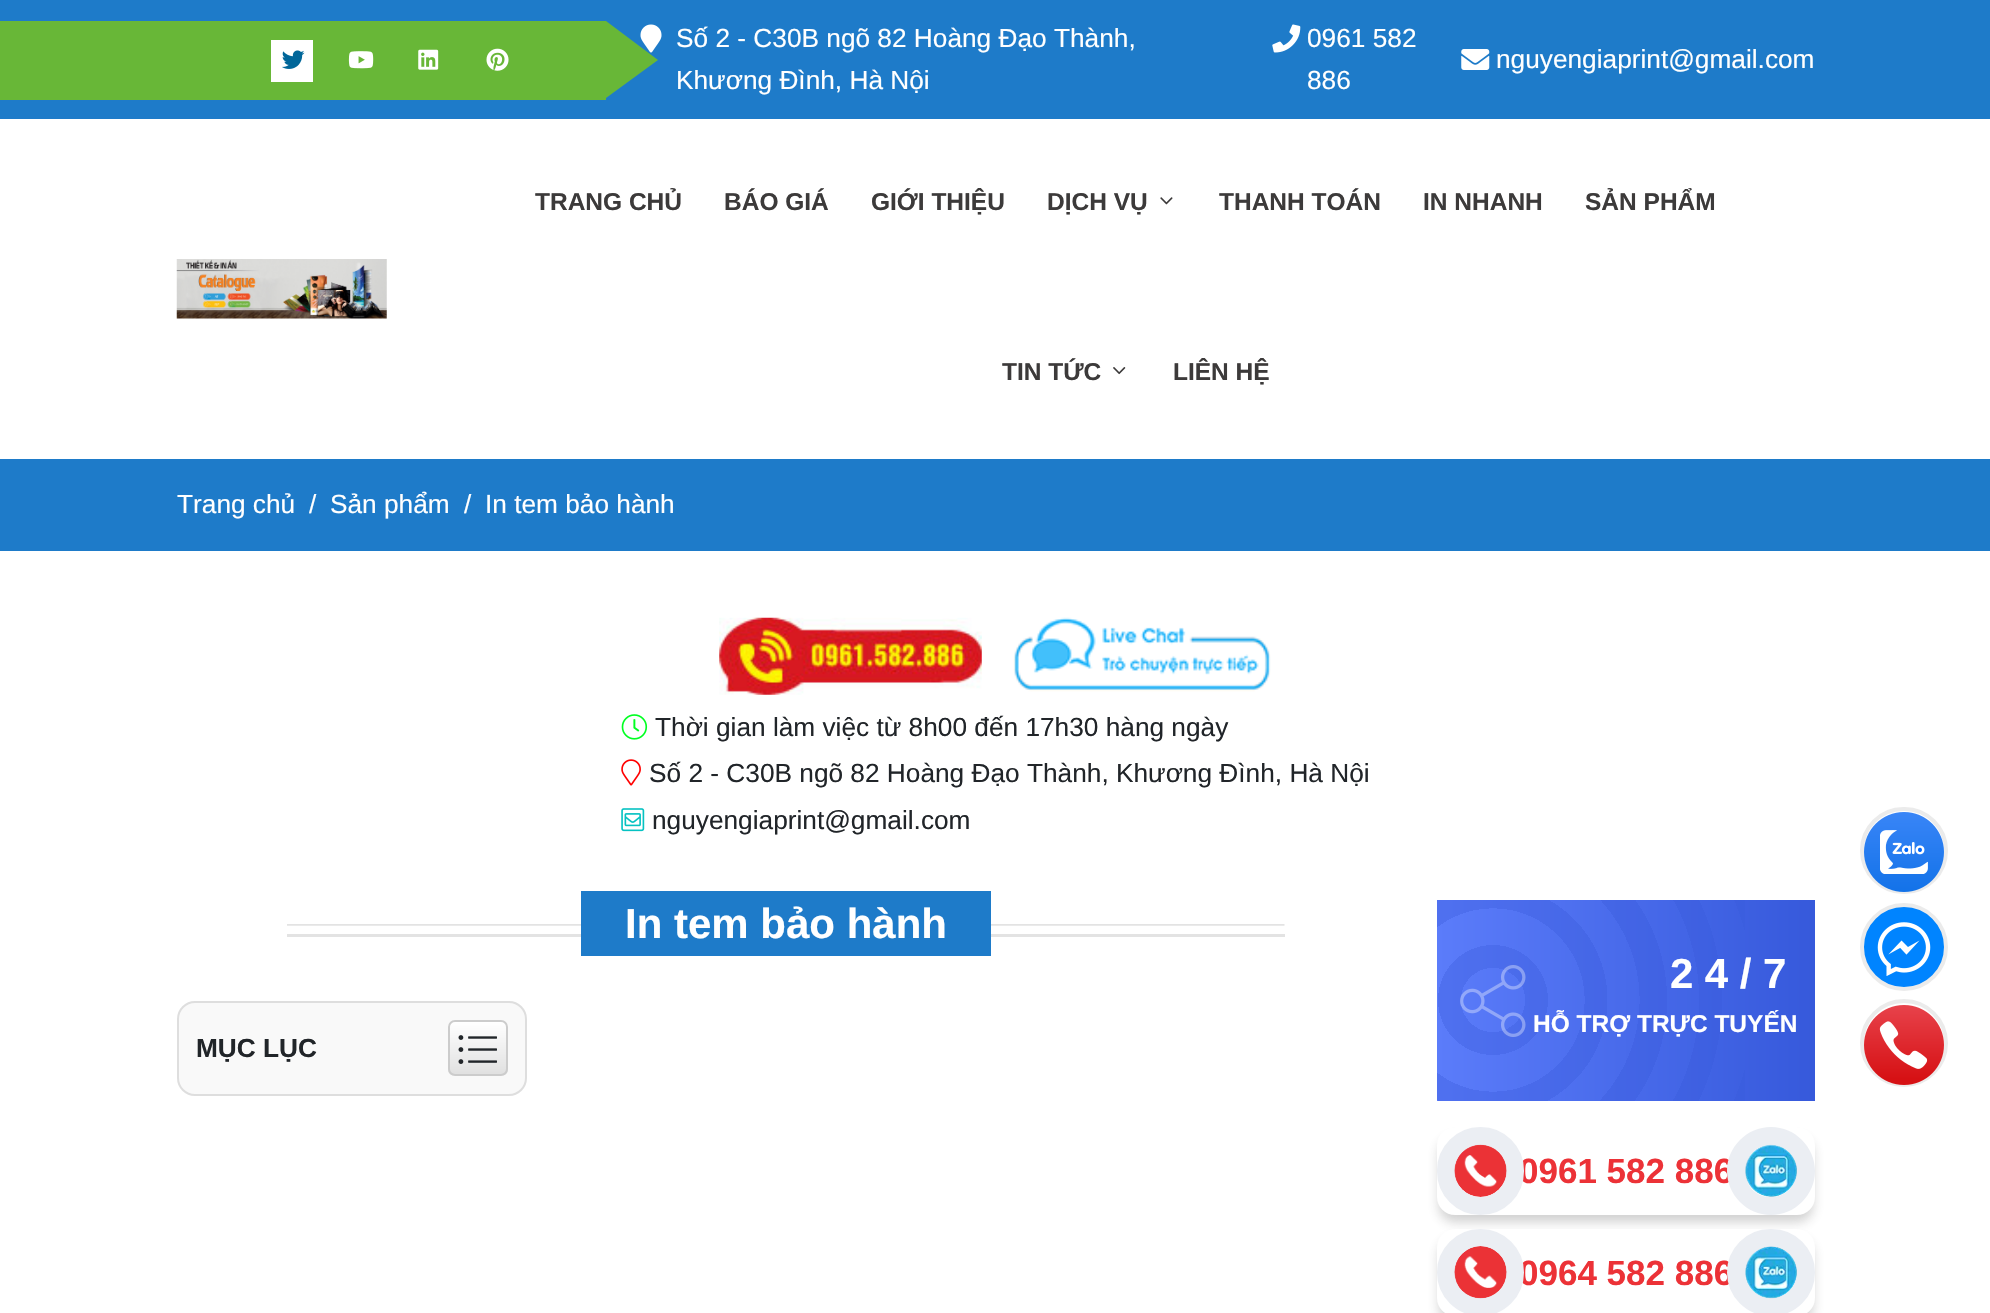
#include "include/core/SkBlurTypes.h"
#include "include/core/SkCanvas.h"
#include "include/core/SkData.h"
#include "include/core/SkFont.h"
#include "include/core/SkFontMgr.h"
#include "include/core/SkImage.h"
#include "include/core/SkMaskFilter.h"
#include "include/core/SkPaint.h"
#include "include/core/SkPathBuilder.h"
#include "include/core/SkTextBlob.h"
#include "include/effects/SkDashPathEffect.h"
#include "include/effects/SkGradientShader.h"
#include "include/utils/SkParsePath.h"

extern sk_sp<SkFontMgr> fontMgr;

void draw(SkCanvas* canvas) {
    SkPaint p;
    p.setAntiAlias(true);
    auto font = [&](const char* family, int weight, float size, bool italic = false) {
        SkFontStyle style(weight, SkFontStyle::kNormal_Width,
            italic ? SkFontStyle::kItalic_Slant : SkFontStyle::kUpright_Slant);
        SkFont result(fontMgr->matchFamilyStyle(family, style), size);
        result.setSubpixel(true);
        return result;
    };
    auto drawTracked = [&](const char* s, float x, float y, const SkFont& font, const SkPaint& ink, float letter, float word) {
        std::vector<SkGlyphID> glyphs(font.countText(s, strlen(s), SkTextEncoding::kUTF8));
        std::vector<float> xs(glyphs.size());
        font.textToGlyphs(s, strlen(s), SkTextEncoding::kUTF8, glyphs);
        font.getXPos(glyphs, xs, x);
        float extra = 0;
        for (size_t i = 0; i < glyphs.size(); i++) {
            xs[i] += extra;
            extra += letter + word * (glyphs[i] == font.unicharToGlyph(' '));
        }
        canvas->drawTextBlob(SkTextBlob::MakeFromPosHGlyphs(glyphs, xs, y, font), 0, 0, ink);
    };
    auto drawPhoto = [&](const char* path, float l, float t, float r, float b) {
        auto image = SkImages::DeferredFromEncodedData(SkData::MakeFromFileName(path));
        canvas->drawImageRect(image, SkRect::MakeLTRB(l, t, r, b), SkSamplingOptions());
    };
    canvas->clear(0xFFFFFFFF);
    {
        const struct { float l, t, r, b; SkColor color; } items[] = {
            {0, 0, 1990, 119, 0xFF1E7BC9},
            {0, 21, 606, 100, 0xFF68B737},
            {271, 40, 313, 82, 0xFFFFFFFF},
        };
        for (auto [l, t, r, b, color] : items) {
            p.setColor(color);
            canvas->drawRect(SkRect::MakeLTRB(l, t, r, b), p);
        }
    }
    drawPhoto("media/1.png", 282, 50, 305, 69);
    drawPhoto("media/2.png", 348, 51, 374, 69);
    drawPhoto("media/3.png", 418, 49, 439, 70);
    drawPhoto("media/4.png", 486, 48, 509, 71);
    p.setColor(0xFF68B737);
    canvas->drawPath(SkPathBuilder().moveTo(606, 98).lineTo(606, 21).lineTo(658, 60).close().detach(), p);
    drawPhoto("media/5.png", 640, 24, 662, 53);
    auto font1 = font("Liberation Sans", 400, 26.25f);
    p.setColor(0xFFFFFFFF);
    canvas->drawString("Số 2 - C30B ngõ 82 Hoàng Đạo Thành,", 676, 47, font1, p);
    canvas->drawString("Khương Đình, Hà Nội", 676, 89, font1, p);
    drawPhoto("media/6.png", 1272, 24, 1301, 53);
    canvas->drawString("0961 582", 1307, 47, font1, p);
    canvas->drawString("886", 1307, 89, font1, p);
    drawPhoto("media/7.png", 1461, 49, 1490, 70);
    canvas->drawString("nguyengiaprint@gmail.com", 1496, 68, font1, p);
    drawPhoto("media/8.png", 176, 259, 387, 319);
    auto font2 = font("Liberation Sans", 700, 24.5f);
    p.setColor(0xFF3C3A3A);
    {
        const struct { const char* s; float x, y; } items[] = {
            {"TRANG CHỦ", 535, 210},
            {"BÁO GIÁ", 724, 210},
            {"GIỚI THIỆU", 871, 210},
            {"DỊCH VỤ", 1047, 210},
        };
        for (auto [s, x, y] : items) {
            canvas->drawString(s, x, y, font2, p);
        }
    }
    drawPhoto("media/9.png", 1160, 197, 1173, 205);
    {
        const struct { const char* s; float x, y; } items[] = {
            {"THANH TOÁN", 1219, 210},
            {"IN NHANH", 1423, 210},
            {"SẢN PHẨM", 1585, 210},
            {"TIN TỨC", 1002, 380},
        };
        for (auto [s, x, y] : items) {
            canvas->drawString(s, x, y, font2, p);
        }
    }
    drawPhoto("media/10.png", 1113, 367, 1126, 375);
    canvas->drawString("LIÊN HỆ", 1173, 380, font2, p);
    p.setColor(0xFF1E7BC9);
    canvas->drawRect(SkRect::MakeLTRB(0, 459, 1990, 551), p);
    p.setColor(0xFFFFFFFF);
    {
        const struct { const char* s; float x, y; } items[] = {
            {"Trang chủ", 177, 513},
            {"/", 309, 513},
            {"Sản phẩm", 330, 513},
            {"/", 464, 513},
            {"In tem bảo hành", 485, 513},
        };
        for (auto [s, x, y] : items) {
            canvas->drawString(s, x, y, font1, p);
        }
    }
    drawPhoto("media/11.png", 719, 617, 982, 695);
    drawPhoto("media/12.png", 1013, 617, 1271, 692);
    drawPhoto("media/13.png", 621, 714, 648, 740);
    p.setColor(0xFF212529);
    canvas->drawString("Thời gian làm việc từ 8h00 đến 17h30 hàng ngày", 655, 736, font1, p);
    drawPhoto("media/14.png", 621, 759, 641, 786);
    canvas->drawString("Số 2 - C30B ngõ 82 Hoàng Đạo Thành, Khương Đình, Hà Nội", 649, 782, font1, p);
    drawPhoto("media/15.png", 621, 808, 645, 832);
    canvas->drawString("nguyengiaprint@gmail.com", 652, 829, font1, p);
    drawPhoto("media/16.png", 287, 924, 1285, 926);
    p.setColor(0xFFE3E3E3);
    canvas->drawRect(SkRect::MakeLTRB(287, 934, 1285, 937), p);
    p.setColor(0xFF1E7BC9);
    canvas->drawRect(SkRect::MakeLTRB(581, 891, 991, 956), p);
    auto font3 = font("Liberation Sans", 700, 42);
    p.setColor(0xFFFFFFFF);
    canvas->drawString("In tem bảo hành", 625, 938, font3, p);
    p.setColor(0xFFF9F9F9);
    canvas->drawRoundRect(SkRect::MakeLTRB(178, 1002, 526, 1095), 17, 17, p);
    p.setStyle(SkPaint::kStroke_Style);
    p.setStrokeWidth(2);
    p.setColor(0xFFDEDEDE);
    canvas->drawRoundRect(SkRect::MakeLTRB(178, 1002, 526, 1095), 17, 17, p);
    auto font4 = font("Liberation Sans", 700, 26.25f);
    p.setStyle(SkPaint::kFill_Style);
    p.setColor(0xFF212529);
    canvas->drawString("MỤC LỤC", 196, 1057, font4, p);
    canvas->save();
    canvas->clipPath(SkPathBuilder().moveTo(455, 1020).lineTo(501, 1020).cubicTo(505, 1020, 508, 1023, 508, 1027).lineTo(508, 1069).cubicTo(508, 1073, 505, 1076, 501, 1076).lineTo(455, 1076).cubicTo(451, 1076, 448, 1073, 448, 1069).lineTo(448, 1027).cubicTo(448, 1023, 451, 1020, 455, 1020).close().detach(), true);
    {
        const SkColor colors[] = {0xFFFFFFFF, 0xFFE0E0E0};
        const float stops[] = {0, 1};
        const SkPoint ends[] = {{478, 1022}, {478, 1075}};
        p.setShader(SkGradientShader::MakeLinear(ends, colors, stops, 2, SkTileMode::kClamp));
        p.setAlpha(255);
    }
    canvas->drawRect(SkRect::MakeLTRB(448, 1022, 508, 1075), p);
    canvas->restore();
    p.setStyle(SkPaint::kStroke_Style);
    p.setShader(nullptr);
    p.setColor(0xFFCCCCCC);
    canvas->drawRoundRect(SkRect::MakeLTRB(449, 1021, 507, 1075), 6, 6, p);
    drawPhoto("media/17.png", 458, 1035, 497, 1064);
    p.setStyle(SkPaint::kFill_Style);
    {
        const SkColor colors[] = {0xFF5B7CFA, 0xFF3659DB};
        const float stops[] = {0, 1};
        const SkPoint ends[] = {{1437, 1000}, {1815, 1000}};
        p.setShader(SkGradientShader::MakeLinear(ends, colors, stops, 2, SkTileMode::kClamp));
        p.setAlpha(255);
    }
    canvas->drawRect(SkRect::MakeLTRB(1437, 900, 1815, 1101), p);
    {
        const SkColor colors[] = {0x00000000, 0x003659DB, 0x543659DB, 0x543659DB, 0x003659DB, 0x003659DB, 0x543659DB, 0x543659DB, 0x003659DB, 0x003659DB, 0x543659DB, 0x543659DB, 0x003659DB, 0x003659DB, 0x543659DB, 0x543659DB, 0x003659DB, 0x003659DB, 0x543659DB, 0x543659DB, 0x003659DB, 0x003659DB, 0x543659DB, 0x543659DB, 0x003659DB, 0x003659DB, 0x543659DB, 0x543659DB, 0x003659DB, 0x003659DB, 0x543659DB, 0x543659DB};
        const float stops[] = {0, 0.07f, 0.07f, 0.12f, 0.12f, 0.2f, 0.2f, 0.25f, 0.25f, 0.32f, 0.32f, 0.38f, 0.38f, 0.45f, 0.45f, 0.5f, 0.5f, 0.57f, 0.57f, 0.62f, 0.62f, 0.7f, 0.7f, 0.75f, 0.75f, 0.82f, 0.82f, 0.87f, 0.88f, 0.95f, 0.95f, 1};
        p.setShader(SkGradientShader::MakeRadial({1493, 1000}, 458, colors, stops, 32, SkTileMode::kClamp));
        p.setAlpha(255);
    }
    canvas->drawRect(SkRect::MakeLTRB(1437, 900, 1745, 1101), p);
    drawPhoto("media/18.png", 1460, 965, 1526, 1037);
    p.setShader(nullptr);
    p.setColor(0xFFFFFFFF);
    drawTracked("24/7", 1670, 988, font3, p, 11.5f, 0);
    canvas->drawString("HỖ TRỢ TRỰC TUYẾN", 1533, 1032, font2, p);
    p.setColor(0x3B333333);
    p.setMaskFilter(SkMaskFilter::MakeBlur(kNormal_SkBlurStyle, 6));
    canvas->drawRoundRect(SkRect::MakeLTRB(1439, 1138, 1813, 1222), 16, 16, p);
    p.setMaskFilter(nullptr);
    p.setColor(0xFFFFFFFF);
    canvas->drawRoundRect(SkRect::MakeLTRB(1437, 1127, 1815, 1215), 18, 18, p);
    auto font5 = font("Liberation Sans", 700, 35);
    p.setColor(0xFFEC3237);
    canvas->drawString("0961 582 886", 1519, 1183, font5, p);
    p.setStyle(SkPaint::kStroke_Style);
    p.setStrokeWidth(18);
    p.setColor(0xFFEBEEF3);
    canvas->drawRoundRect(SkRect::MakeLTRB(1446, 1136, 1515, 1206), 34.5f, 34.5f, p);
    drawPhoto("media/19.png", 1454, 1144, 1507, 1197);
    p.setStyle(SkPaint::kFill_Style);
    canvas->drawPath(SkPathBuilder(SkPathFillType::kEvenOdd).moveTo(1771, 1127).cubicTo(1795, 1127, 1815, 1147, 1815, 1171).cubicTo(1815, 1195, 1795, 1215, 1771, 1215).cubicTo(1747, 1215, 1727, 1195, 1727, 1171).cubicTo(1727, 1147, 1747, 1127, 1771, 1127).close().moveTo(1771, 1145).cubicTo(1737, 1145, 1737, 1197, 1771, 1197).cubicTo(1805, 1197, 1805, 1145, 1771, 1145).close().detach(), p);
    drawPhoto("media/20.png", 1745, 1144, 1797, 1197);
    p.setColor(0x3B333333);
    p.setMaskFilter(SkMaskFilter::MakeBlur(kNormal_SkBlurStyle, 6));
    canvas->drawRoundRect(SkRect::MakeLTRB(1439, 1239, 1813, 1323), 16, 16, p);
    p.setMaskFilter(nullptr);
    p.setColor(0xFFFFFFFF);
    canvas->drawRoundRect(SkRect::MakeLTRB(1437, 1229, 1815, 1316), 18, 18, p);
    p.setColor(0xFFEC3237);
    canvas->drawString("0964 582 886", 1519, 1285, font5, p);
    p.setStyle(SkPaint::kStroke_Style);
    p.setColor(0xFFEBEEF3);
    canvas->drawCircle(1480.5f, 1272.5f, 34.5f, p);
    drawPhoto("media/21.png", 1454, 1246, 1507, 1299);
    canvas->drawRoundRect(SkRect::MakeLTRB(1736, 1238, 1806, 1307), 34.5f, 34.5f, p);
    drawPhoto("media/22.png", 1745, 1246, 1797, 1299);
    p.setStrokeWidth(4);
    p.setColor(0xFFEBEBEB);
    canvas->drawRoundRect(SkRect::MakeLTRB(1862, 809, 1946, 892), 41.5f, 41.5f, p);
    drawPhoto("media/23.png", 1864, 812, 1944, 892);
    p.setStyle(SkPaint::kFill_Style);
    p.setColor(0xFF0084FF);
    canvas->drawCircle(1904, 947, 42, p);
    p.setStyle(SkPaint::kStroke_Style);
    p.setColor(0xFFEBEBEB);
    canvas->drawCircle(1904, 947, 42, p);
    drawPhoto("media/24.png", 1877, 922, 1931, 976);
    canvas->drawCircle(1904, 1043, 42, p);
    drawPhoto("media/25.png", 1864, 1005, 1944, 1085);
}
